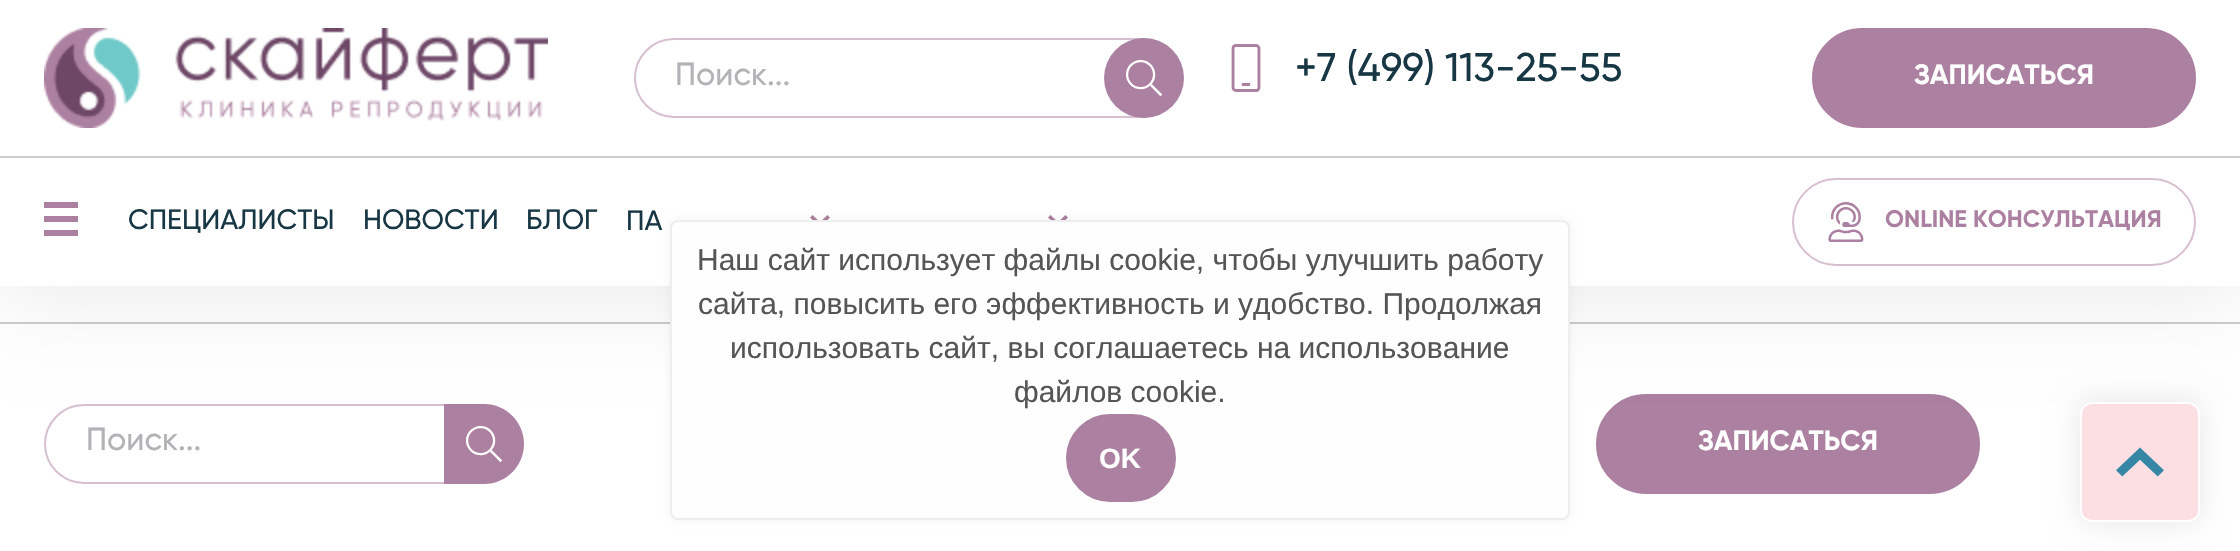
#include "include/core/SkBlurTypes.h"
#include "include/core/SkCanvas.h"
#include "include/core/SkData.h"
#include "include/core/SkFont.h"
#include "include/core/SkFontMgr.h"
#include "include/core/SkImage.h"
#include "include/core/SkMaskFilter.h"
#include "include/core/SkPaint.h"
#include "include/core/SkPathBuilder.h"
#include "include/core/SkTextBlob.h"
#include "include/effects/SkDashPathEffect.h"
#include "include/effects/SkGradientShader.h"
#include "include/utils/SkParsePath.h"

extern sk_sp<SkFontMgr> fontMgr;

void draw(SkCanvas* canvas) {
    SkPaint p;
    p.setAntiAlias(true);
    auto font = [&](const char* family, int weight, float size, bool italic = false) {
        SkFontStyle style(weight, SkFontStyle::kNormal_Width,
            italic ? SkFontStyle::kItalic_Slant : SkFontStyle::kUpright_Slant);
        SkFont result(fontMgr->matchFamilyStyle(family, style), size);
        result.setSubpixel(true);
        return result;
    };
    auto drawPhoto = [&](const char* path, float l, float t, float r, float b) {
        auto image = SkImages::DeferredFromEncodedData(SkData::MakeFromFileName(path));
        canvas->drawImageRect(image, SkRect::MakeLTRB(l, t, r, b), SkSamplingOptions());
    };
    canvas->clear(0xFFFFFFFF);
    p.setColor(0x1A000000);
    p.setMaskFilter(SkMaskFilter::MakeBlur(kNormal_SkBlurStyle, 15));
    canvas->drawRoundRect(SkRect::MakeLTRB(2080, 402, 2200, 522), 12, 12, p);
    p.setMaskFilter(nullptr);
    p.setColor(0xFFFBDFE2);
    canvas->drawRoundRect(SkRect::MakeLTRB(2081, 403, 2199, 521), 11, 11, p);
    p.setStyle(SkPaint::kStroke_Style);
    p.setStrokeWidth(2);
    p.setColor(0xFFFFFFFF);
    canvas->drawRoundRect(SkRect::MakeLTRB(2081, 403, 2199, 521), 11, 11, p);
    p.setStyle(SkPaint::kFill_Style);
    p.setColor(0xFFCCCCCC);
    canvas->drawRect(SkRect::MakeLTRB(0, 322, 2240, 324), p);
    p.setStyle(SkPaint::kStroke_Style);
    p.setColor(0xFFD6C0D0);
    canvas->drawRoundRect(SkRect::MakeLTRB(45, 405, 521, 483), 39, 39, p);
    p.setStyle(SkPaint::kFill_Style);
    p.setColor(0xFFAC80A0);
    canvas->drawPath(SkPathBuilder().moveTo(444, 404).lineTo(484, 404).cubicTo(506, 404, 524, 422, 524, 444).cubicTo(524, 466, 506, 484, 484, 484).lineTo(444, 484).close().detach(), p);
    drawPhoto("media/2.png", 466, 426, 502, 462);
    canvas->drawRoundRect(SkRect::MakeLTRB(1597, 395, 1979, 493), 49, 49, p);
    p.setStyle(SkPaint::kStroke_Style);
    canvas->drawRoundRect(SkRect::MakeLTRB(1597, 395, 1979, 493), 49, 49, p);
    p.setStyle(SkPaint::kFill_Style);
    p.setColor(0x1A000000);
    p.setMaskFilter(SkMaskFilter::MakeBlur(kNormal_SkBlurStyle, 50));
    canvas->drawRect(SkRect::MakeLTRB(0, 0, 2240, 286), p);
    p.setMaskFilter(nullptr);
    p.setColor(0xFFFFFFFF);
    canvas->drawRect(SkRect::MakeLTRB(0, 0, 2240, 286), p);
    p.setColor(0xFFCCCCCC);
    canvas->drawRect(SkRect::MakeLTRB(0, 156, 2240, 158), p);
    drawPhoto("media/1.png", 44, 28, 548, 128);
    p.setStyle(SkPaint::kStroke_Style);
    p.setColor(0xFFD6C0D0);
    canvas->drawRoundRect(SkRect::MakeLTRB(635, 39, 1181, 117), 39, 39, p);
    auto font1 = font("Gilroy", 500, 32);
    p.setStyle(SkPaint::kFill_Style);
    p.setColor(0xFFB2B3B6);
    canvas->drawString("Поиск...", 675, 85, font1, p);
    p.setColor(0xFFAC80A0);
    canvas->drawCircle(1144, 78, 40, p);
    drawPhoto("media/2.png", 1126, 60, 1162, 96);
    drawPhoto("media/3.png", 1231, 44, 1261, 92);
    auto font2 = font("Gilroy", 500, 40);
    p.setColor(0xFF183744);
    canvas->drawString("+7 (499) 113-25-55", 1295, 81, font2, p);
    p.setColor(0xFFAC80A0);
    canvas->drawRoundRect(SkRect::MakeLTRB(1813, 29, 2195, 127), 49, 49, p);
    p.setStyle(SkPaint::kStroke_Style);
    canvas->drawRoundRect(SkRect::MakeLTRB(1813, 29, 2195, 127), 49, 49, p);
    auto font3 = font("Gilroy", 700, 28);
    p.setStyle(SkPaint::kFill_Style);
    p.setColor(0xFFFFFFFF);
    canvas->drawString("ЗАПИСАТЬСЯ", 1914, 84, font3, p);
    {
        const struct { float l, t, r, b; SkColor color; } items[] = {
            {44, 216, 78, 222, 0xFFAC80A0},
            {44, 202, 78, 208, 0xFFAC80A0},
            {44, 230, 78, 236, 0xFFAC80A0},
        };
        for (auto [l, t, r, b, color] : items) {
            p.setColor(color);
            canvas->drawRect(SkRect::MakeLTRB(l, t, r, b), p);
        }
    }
    auto font4 = font("Gilroy", 500, 28);
    p.setColor(0xFF183744);
    {
        const struct { const char* s; float x, y; } items[] = {
            {"СПЕЦИАЛИСТЫ", 128, 229},
            {"НОВОСТИ", 363, 229},
            {"БЛОГ", 526, 229},
            {"ПА", 626, 230},
        };
        for (auto [s, x, y] : items) {
            canvas->drawString(s, x, y, font4, p);
        }
    }
    p.setColor(0xFFAC80A0);
    canvas->drawPath(SkPathBuilder().moveTo(820, 227).lineTo(810, 217.5f).lineTo(812.5f, 215).lineTo(820, 222).lineTo(827.5f, 215).lineTo(830, 217.5f).close().detach(), p);
    canvas->drawPath(SkPathBuilder().moveTo(1058, 227).lineTo(1048, 217.5f).lineTo(1050.5f, 215).lineTo(1058, 222).lineTo(1065.5f, 215).lineTo(1068, 217.5f).close().detach(), p);
    p.setStyle(SkPaint::kStroke_Style);
    p.setColor(0xFFD6C0D0);
    canvas->drawRoundRect(SkRect::MakeLTRB(1793, 179, 2195, 265), 43, 43, p);
    drawPhoto("media/4.png", 1828, 202, 1864, 242);
    auto font5 = font("Gilroy", 700, 24);
    p.setStyle(SkPaint::kFill_Style);
    p.setColor(0xFFAC80A0);
    canvas->drawString("ONLINE КОНСУЛЬТАЦИЯ", 1885, 227, font5, p);
    p.setColor(0x0D000000);
    p.setMaskFilter(SkMaskFilter::MakeBlur(kNormal_SkBlurStyle, 4));
    canvas->drawRoundRect(SkRect::MakeLTRB(670, 220, 1570, 520), 8, 8, p);
    p.setMaskFilter(nullptr);
    p.setColor(0xFFFEFEFE);
    canvas->drawRoundRect(SkRect::MakeLTRB(671, 221, 1569, 519), 7, 7, p);
    p.setStyle(SkPaint::kStroke_Style);
    p.setColor(0xFFEEEEEE);
    canvas->drawRoundRect(SkRect::MakeLTRB(671, 221, 1569, 519), 7, 7, p);
    auto font6 = font("Liberation Sans", 400, 30);
    p.setStyle(SkPaint::kFill_Style);
    p.setColor(0xFF555555);
    {
        const struct { const char* s; float x, y; } items[] = {
            {"Наш сайт использует файлы cookie, чтобы улучшить работу", 697, 270},
            {"сайта, повысить его эффективность и удобство. Продолжая", 698, 314},
            {"использовать сайт, вы соглашаетесь на использование", 730, 358},
            {"файлов cookie.", 1014, 402},
        };
        for (auto [s, x, y] : items) {
            canvas->drawString(s, x, y, font6, p);
        }
    }
    p.setColor(0xFFAC80A0);
    canvas->drawRoundRect(SkRect::MakeLTRB(1067, 415, 1175, 501), 43, 43, p);
    p.setStyle(SkPaint::kStroke_Style);
    canvas->drawRoundRect(SkRect::MakeLTRB(1067, 415, 1175, 501), 43, 43, p);
    auto font7 = font("Liberation Sans", 700, 28);
    p.setStyle(SkPaint::kFill_Style);
    p.setColor(0xFFFFFFFF);
    canvas->drawString("OK", 1099, 468, font7, p);
    drawPhoto("media/5.png", 2116, 447, 2164, 477);
    p.setColor(0xFFB2B3B6);
    canvas->drawString("Поиск...", 86, 450, font1, p);
    p.setColor(0xFFFFFFFF);
    canvas->drawString("ЗАПИСАТЬСЯ", 1698, 450, font3, p);
}
